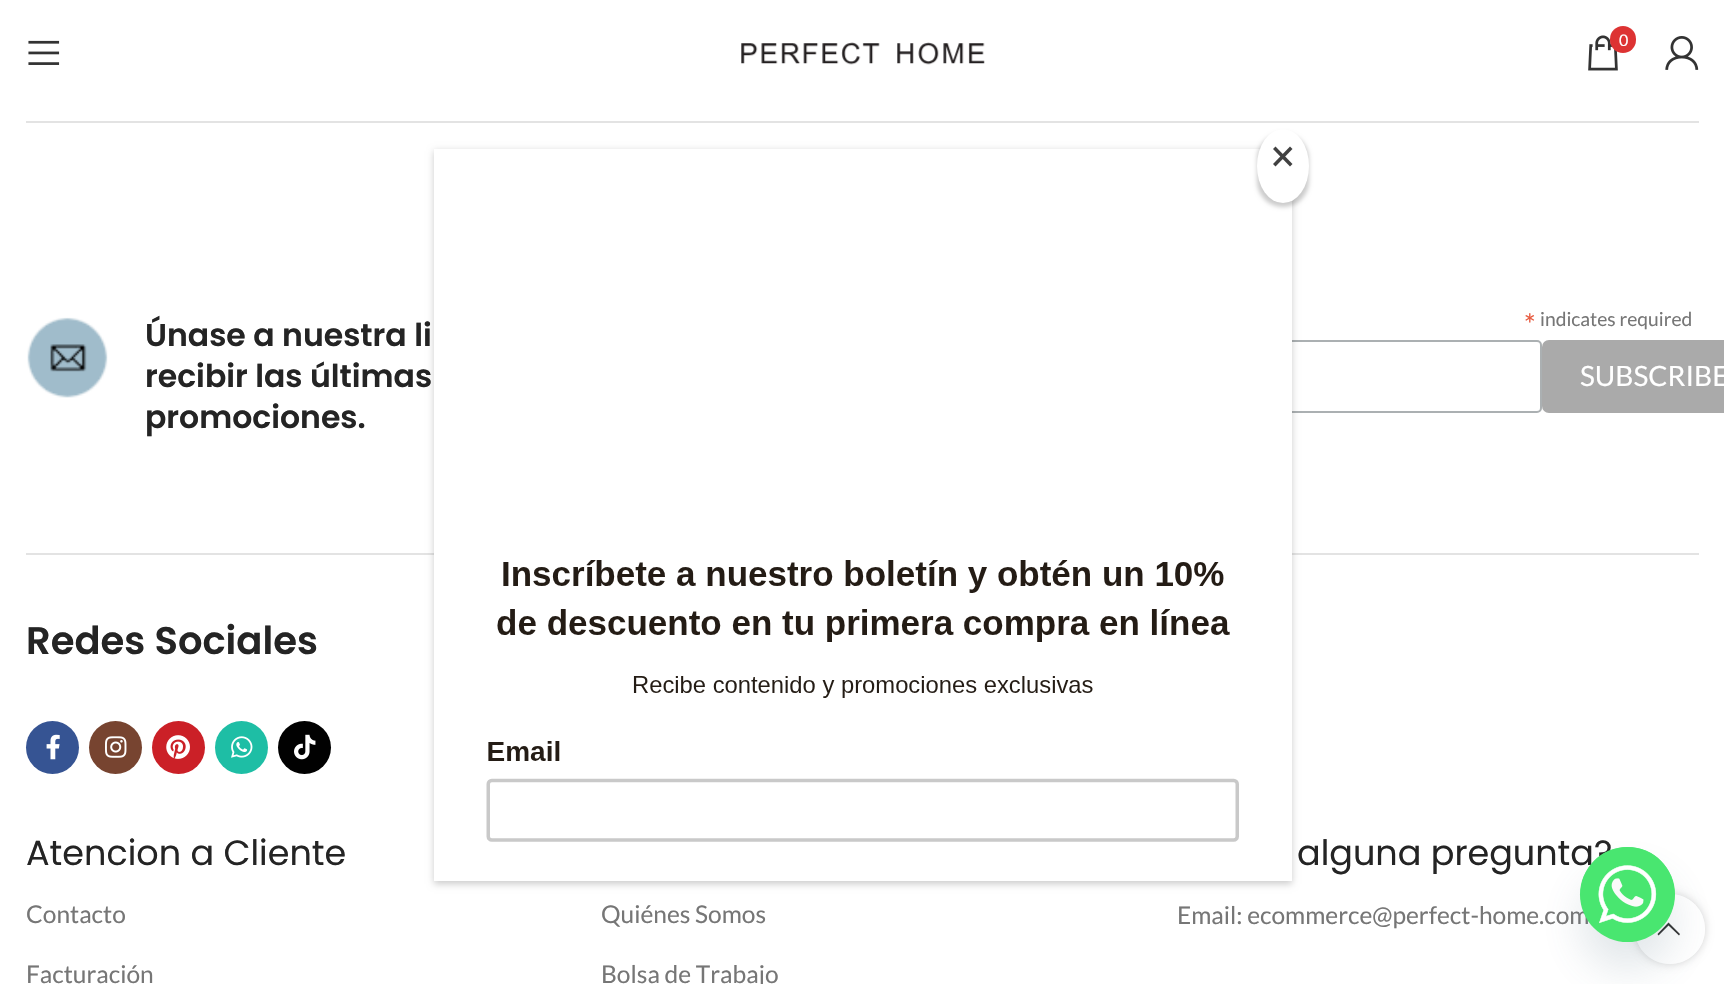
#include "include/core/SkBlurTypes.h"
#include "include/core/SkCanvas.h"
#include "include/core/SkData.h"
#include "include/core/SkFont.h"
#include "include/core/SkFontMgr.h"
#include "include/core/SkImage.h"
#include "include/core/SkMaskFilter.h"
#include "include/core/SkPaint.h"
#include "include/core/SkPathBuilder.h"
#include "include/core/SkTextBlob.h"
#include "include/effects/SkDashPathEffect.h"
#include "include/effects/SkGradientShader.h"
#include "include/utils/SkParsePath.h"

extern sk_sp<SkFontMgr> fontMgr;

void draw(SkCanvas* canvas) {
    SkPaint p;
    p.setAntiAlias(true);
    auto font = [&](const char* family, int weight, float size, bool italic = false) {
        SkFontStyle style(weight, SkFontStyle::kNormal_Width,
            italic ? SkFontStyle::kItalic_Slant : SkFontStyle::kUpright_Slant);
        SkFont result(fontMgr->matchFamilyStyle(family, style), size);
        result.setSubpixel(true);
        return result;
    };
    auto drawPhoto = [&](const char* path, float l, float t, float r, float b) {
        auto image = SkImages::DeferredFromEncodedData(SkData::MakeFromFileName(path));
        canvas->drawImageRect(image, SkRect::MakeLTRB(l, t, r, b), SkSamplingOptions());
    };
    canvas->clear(0xFFFFFFFF);
    drawPhoto("media/1.png", 28, 40, 60, 65);
    drawPhoto("media/2.png", 741, 42, 985, 65);
    drawPhoto("media/3.png", 1588, 35, 1618, 71);
    p.setColor(0xFFDD3333);
    canvas->drawRoundRect(SkRect::MakeLTRB(1610, 26, 1636, 53), 13, 13, p);
    auto font1 = font("Lato", 400, 16);
    p.setColor(0xFFFFFFFF);
    canvas->drawString("0", 1619, 46, font1, p);
    drawPhoto("media/4.png", 1665, 36, 1699, 70);
    p.setColor(0xFFE3E3E3);
    canvas->drawRect(SkRect::MakeLTRB(26, 121, 1699, 123), p);
    drawPhoto("media/5.png", 27, 317, 108, 398);
    auto font2 = font("Poppins", 600, 31.5f);
    p.setColor(0xFF242424);
    {
        const struct { const char* s; float x, y; } items[] = {
            {"Únase a nuestra li", 145, 346},
            {"recibir las últimas", 145, 387},
            {"promociones.", 145, 428},
        };
        for (auto [s, x, y] : items) {
            canvas->drawString(s, x, y, font2, p);
        }
    }
    auto font3 = font("Lato", 400, 29);
    p.setColor(0xFFE85C41);
    canvas->drawString("*", 1524, 335, font3, p);
    auto font4 = font("Lato", 400, 19.25f);
    p.setColor(0xFF767676);
    canvas->drawString("indicates required", 1540, 326, font4, p);
    p.setStyle(SkPaint::kStroke_Style);
    p.setStrokeWidth(2);
    p.setColor(0xFFABB0B2);
    canvas->drawRoundRect(SkRect::MakeLTRB(930, 341, 1541, 412), 4, 4, p);
    p.setStyle(SkPaint::kFill_Style);
    p.setColor(0xFFAAAAAA);
    canvas->drawRoundRect(SkRect::MakeLTRB(1542, 340, 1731, 413), 7, 7, p);
    auto font5 = font("Lato", 400, 28);
    p.setColor(0xFFFFFFFF);
    canvas->drawString("SUBSCRIBE", 1580, 386, font5, p);
    p.setColor(0xFFE3E3E3);
    canvas->drawRect(SkRect::MakeLTRB(26, 553, 1699, 555), p);
    auto font6 = font("Poppins", 600, 38.5f);
    p.setColor(0xFF242424);
    canvas->drawString("Redes Sociales", 26, 654, font6, p);
    p.setColor(0xFF365493);
    canvas->drawCircle(52.5f, 747.5f, 26.5f, p);
    drawPhoto("media/6.png", 46, 734, 60, 760);
    p.setColor(0xFF774430);
    canvas->drawCircle(115.5f, 747.5f, 26.5f, p);
    drawPhoto("media/7.png", 105, 736, 127, 758);
    p.setColor(0xFFCB2027);
    canvas->drawCircle(178.5f, 747.5f, 26.5f, p);
    drawPhoto("media/8.png", 166, 735, 190, 759);
    p.setColor(0xFF1EBEA5);
    canvas->drawCircle(241.5f, 747.5f, 26.5f, p);
    drawPhoto("media/9.png", 231, 736, 253, 758);
    p.setColor(0xFF010101);
    canvas->drawCircle(304.5f, 747.5f, 26.5f, p);
    drawPhoto("media/10.png", 294, 734, 316, 760);
    auto font7 = font("Poppins", 400, 35);
    p.setColor(0xFF242424);
    canvas->drawString("Atencion a Cliente", 26, 865, font7, p);
    auto font8 = font("Lato", 400, 24.5f);
    p.setColor(0xFF767676);
    canvas->drawString("Contacto", 26, 923, font8, p);
    canvas->drawString("Facturación", 26, 983, font8, p);
    p.setColor(0xFF242424);
    canvas->drawString("alguna pregunta?", 1297, 865, font7, p);
    p.setColor(0xFF767676);
    {
        const struct { const char* s; float x, y; } items[] = {
            {"Email: ecommerce@perfect-home.com", 1177, 924},
            {"Quiénes Somos", 601, 923},
            {"Bolsa de Trabajo", 601, 983},
        };
        for (auto [s, x, y] : items) {
            canvas->drawString(s, x, y, font8, p);
        }
    }
    p.setColor(0x33000000);
    p.setMaskFilter(SkMaskFilter::MakeBlur(kNormal_SkBlurStyle, 3.5f));
    canvas->drawRect(SkRect::MakeLTRB(434, 151, 1292, 884), p);
    p.setMaskFilter(nullptr);
    drawPhoto("media/11.png", 434, 149, 1292, 881);
    p.setMaskFilter(SkMaskFilter::MakeBlur(kNormal_SkBlurStyle, 2));
    canvas->drawRoundRect(SkRect::MakeLTRB(1257, 133, 1309, 207), 26, 26, p);
    p.setMaskFilter(nullptr);
    p.setColor(0xFFFFFFFF);
    canvas->drawOval(SkRect::MakeLTRB(1257, 129, 1309, 203), p);
    p.setColor(0xFF414141);
    canvas->drawPath(SkPathBuilder().moveTo(1290, 146.5f).lineTo(1292.5f, 149).lineTo(1275.5f, 166.5f).lineTo(1273, 164).close().detach(), p);
    canvas->drawPath(SkPathBuilder().moveTo(1273, 149).lineTo(1275.5f, 146.5f).lineTo(1292.5f, 164).lineTo(1290, 166.5f).close().detach(), p);
    canvas->save();
    canvas->clipPath(SkPathBuilder(SkPathFillType::kEvenOdd).moveTo(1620, 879).lineTo(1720, 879).lineTo(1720, 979).lineTo(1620, 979).close().moveTo(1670, 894).cubicTo(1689.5f, 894, 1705, 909.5f, 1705, 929).cubicTo(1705, 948.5f, 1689.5f, 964, 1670, 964).cubicTo(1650.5f, 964, 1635, 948.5f, 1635, 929).cubicTo(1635, 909.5f, 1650.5f, 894, 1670, 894).close().detach(), true);
    p.setColor(0x2B000000);
    p.setMaskFilter(SkMaskFilter::MakeBlur(kNormal_SkBlurStyle, 4.5f));
    canvas->drawRoundRect(SkRect::MakeLTRB(1635, 894, 1705, 964), 35, 35, p);
    p.setMaskFilter(nullptr);
    canvas->restore();
    p.setColor(0xE6FFFFFF);
    canvas->drawCircle(1670, 929, 35, p);
    p.setColor(0xFF333333);
    canvas->drawPath(SkPathBuilder().moveTo(1679, 935.5f).lineTo(1680, 934).lineTo(1668.5f, 922.5f).lineTo(1657.5f, 934).lineTo(1658.5f, 935.5f).lineTo(1668.5f, 925.5f).close().detach(), p);
    p.setColor(0x2949687E);
    p.setMaskFilter(SkMaskFilter::MakeBlur(kNormal_SkBlurStyle, 21));
    canvas->drawRoundRect(SkRect::MakeLTRB(1580, 875, 1675, 970), 47.5f, 47.5f, p);
    p.setMaskFilter(nullptr);
    p.setColor(0xFF49E670);
    canvas->drawCircle(1627.5f, 894.5f, 47.5f, p);
    drawPhoto("media/12.png", 1580, 847, 1675, 924);
}
